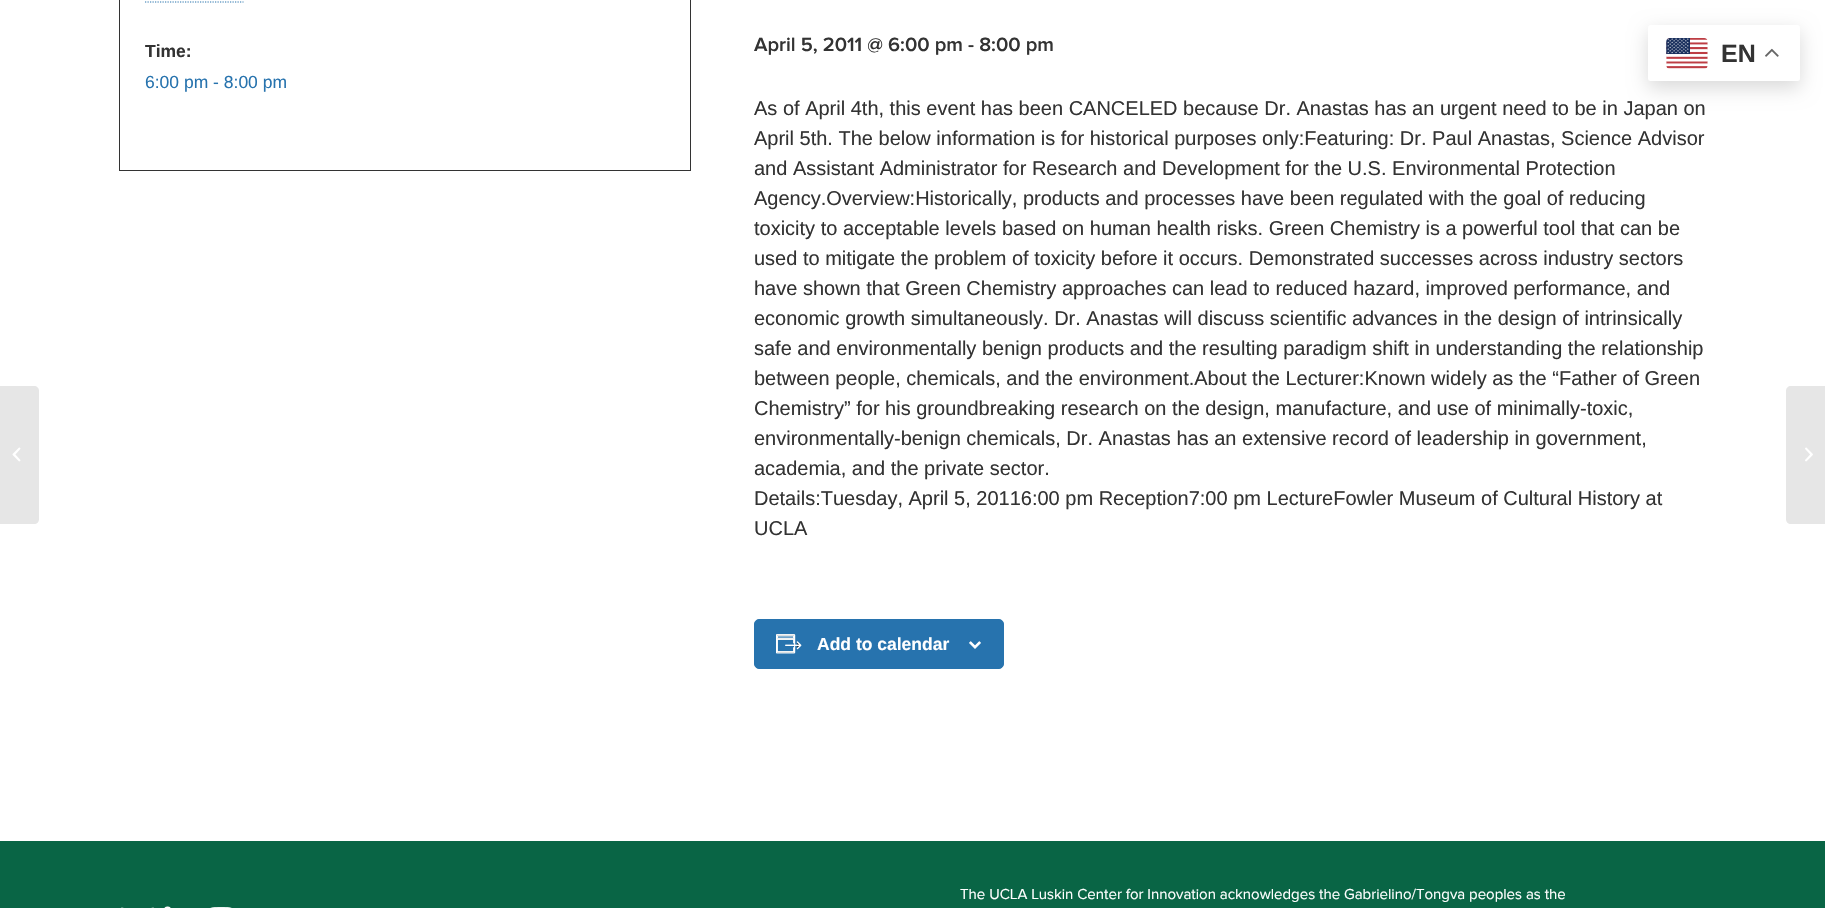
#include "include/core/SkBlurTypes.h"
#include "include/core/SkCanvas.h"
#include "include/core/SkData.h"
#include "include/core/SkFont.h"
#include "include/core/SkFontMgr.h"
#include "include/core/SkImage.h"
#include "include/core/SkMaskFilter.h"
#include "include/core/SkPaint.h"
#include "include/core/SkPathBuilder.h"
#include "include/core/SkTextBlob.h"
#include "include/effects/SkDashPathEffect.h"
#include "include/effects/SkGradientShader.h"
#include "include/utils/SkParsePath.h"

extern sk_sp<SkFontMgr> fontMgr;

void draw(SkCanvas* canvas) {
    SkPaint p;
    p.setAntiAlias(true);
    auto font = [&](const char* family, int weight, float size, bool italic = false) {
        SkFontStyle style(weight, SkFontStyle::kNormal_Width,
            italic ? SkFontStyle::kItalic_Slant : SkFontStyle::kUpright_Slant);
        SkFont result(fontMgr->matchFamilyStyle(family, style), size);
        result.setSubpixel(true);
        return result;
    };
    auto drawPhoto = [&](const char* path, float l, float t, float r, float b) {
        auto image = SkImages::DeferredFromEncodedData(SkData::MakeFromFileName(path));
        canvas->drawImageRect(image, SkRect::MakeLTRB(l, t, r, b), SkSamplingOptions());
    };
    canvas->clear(0xFFFFFFFF);
    p.setColor(0xFFE6E6E6);
    canvas->drawPath(SkPathBuilder().moveTo(0, 386).lineTo(34, 386).cubicTo(37, 386, 39, 388, 39, 391).lineTo(39, 519).cubicTo(39, 522, 37, 524, 34, 524).lineTo(0, 524).close().detach(), p);
    drawPhoto("media/1.png", 12, 447, 21, 462);
    p.setStyle(SkPaint::kStroke_Style);
    p.setStrokeWidth(1);
    p.setColor(0xFF333333);
    canvas->drawRect(SkRect::MakeLTRB(119.5f, -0.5f, 690.5f, 170.5f), p);
    p.setStrokeWidth(1.2f);
    p.setColor(0xFF2773AE);
    p.setPathEffect(SkDashPathEffect::Make({{1.25f, 1.25f}}, 0));
    canvas->drawPath(SkPathBuilder().moveTo(145, 2).lineTo(243.5f, 2).detach(), p);
    p.setPathEffect(nullptr);
    auto font1 = font("Liberation Sans", 700, 17.5f);
    p.setStyle(SkPaint::kFill_Style);
    p.setColor(0xFF333333);
    canvas->drawString("Time:", 145, 57, font1, p);
    auto font2 = font("Liberation Sans", 400, 17.5f);
    p.setColor(0xFF2773AE);
    canvas->drawString("6:00 pm - 8:00 pm", 145, 88, font2, p);
    auto font3 = font("Proxima Nova", 600, 20);
    p.setColor(0xFF333333);
    canvas->drawString("April 5, 2011 @ 6:00 pm - 8:00 pm", 754, 51, font3, p);
    auto font4 = font("Liberation Sans", 400, 20);
    {
        const struct { const char* s; float x, y; } items[] = {
            {"As of April 4th, this event has been CANCELED because Dr. Anastas has an urgent need to be in Japan on", 754, 115},
            {"April 5th. The below information is for historical purposes only:Featuring: Dr. Paul Anastas, Science Advisor", 754, 145},
            {"and Assistant Administrator for Research and Development for the U.S. Environmental Protection", 754, 175},
            {"Agency.Overview:Historically, products and processes have been regulated with the goal of reducing", 754, 205},
            {"toxicity to acceptable levels based on human health risks. Green Chemistry is a powerful tool that can be", 754, 235},
            {"used to mitigate the problem of toxicity before it occurs. Demonstrated successes across industry sectors", 754, 265},
            {"have shown that Green Chemistry approaches can lead to reduced hazard, improved performance, and", 754, 295},
            {"economic growth simultaneously. Dr. Anastas will discuss scientific advances in the design of intrinsically", 754, 325},
            {"safe and environmentally benign products and the resulting paradigm shift in understanding the relationship", 754, 355},
            {"between people, chemicals, and the environment.About the Lecturer:Known widely as the “Father of Green", 754, 385},
            {"Chemistry” for his groundbreaking research on the design, manufacture, and use of minimally-toxic,", 754, 415},
            {"environmentally-benign chemicals, Dr. Anastas has an extensive record of leadership in government,", 754, 445},
            {"academia, and the private sector.", 754, 475},
            {"Details:Tuesday, April 5, 20116:00 pm Reception7:00 pm LectureFowler Museum of Cultural History at", 754, 505},
            {"UCLA", 754, 535},
        };
        for (auto [s, x, y] : items) {
            canvas->drawString(s, x, y, font4, p);
        }
    }
    p.setColor(0xFF2773AE);
    canvas->drawRoundRect(SkRect::MakeLTRB(754.5f, 619.5f, 1003.5f, 668.5f), 4.5f, 4.5f, p);
    p.setStyle(SkPaint::kStroke_Style);
    p.setStrokeWidth(1);
    canvas->drawRoundRect(SkRect::MakeLTRB(754.5f, 619.5f, 1003.5f, 668.5f), 4.5f, 4.5f, p);
    drawPhoto("media/2.png", 776, 634, 802, 654);
    p.setStyle(SkPaint::kFill_Style);
    p.setColor(0xFFFFFFFF);
    canvas->drawString("Add to calendar", 817, 650, font1, p);
    drawPhoto("media/3.png", 969, 641, 981, 649);
    p.setColor(0xFF096545);
    canvas->drawRect(SkRect::MakeLTRB(0, 841, 1825, 908), p);
    auto font5 = font("Proxima Nova", 400, 15);
    p.setColor(0xFFFFFFFF);
    canvas->drawString("The UCLA Luskin Center for Innovation acknowledges the Gabrielino/Tongva peoples as the", 960, 899, font5, p);
    drawPhoto("media/4.png", 121, 907, 154, 908);
    drawPhoto("media/5.png", 164, 906, 171, 908);
    drawPhoto("media/6.png", 210, 907, 232, 908);
    p.setColor(0xFFE6E6E6);
    canvas->drawPath(SkPathBuilder().moveTo(1791, 386).lineTo(1825, 386).lineTo(1825, 524).lineTo(1791, 524).cubicTo(1788, 524, 1786, 522, 1786, 519).lineTo(1786, 391).cubicTo(1786, 388, 1788, 386, 1791, 386).close().detach(), p);
    drawPhoto("media/7.png", 1805, 447, 1813, 462);
    p.setColor(0x26000000);
    p.setMaskFilter(SkMaskFilter::MakeBlur(kNormal_SkBlurStyle, 9.5f));
    canvas->drawRoundRect(SkRect::MakeLTRB(1648, 31, 1800, 88), 2.5f, 2.5f, p);
    p.setMaskFilter(nullptr);
    p.setColor(0xFFFFFFFF);
    canvas->drawRoundRect(SkRect::MakeLTRB(1648, 25, 1800, 81), 2.5f, 2.5f, p);
    drawPhoto("media/8.png", 1666, 38, 1708, 69);
    auto font6 = font("Liberation Sans", 700, 25);
    p.setColor(0xFF333333);
    canvas->drawString("EN", 1721, 62, font6, p);
    drawPhoto("media/9.png", 1765, 48, 1779, 57);
}
